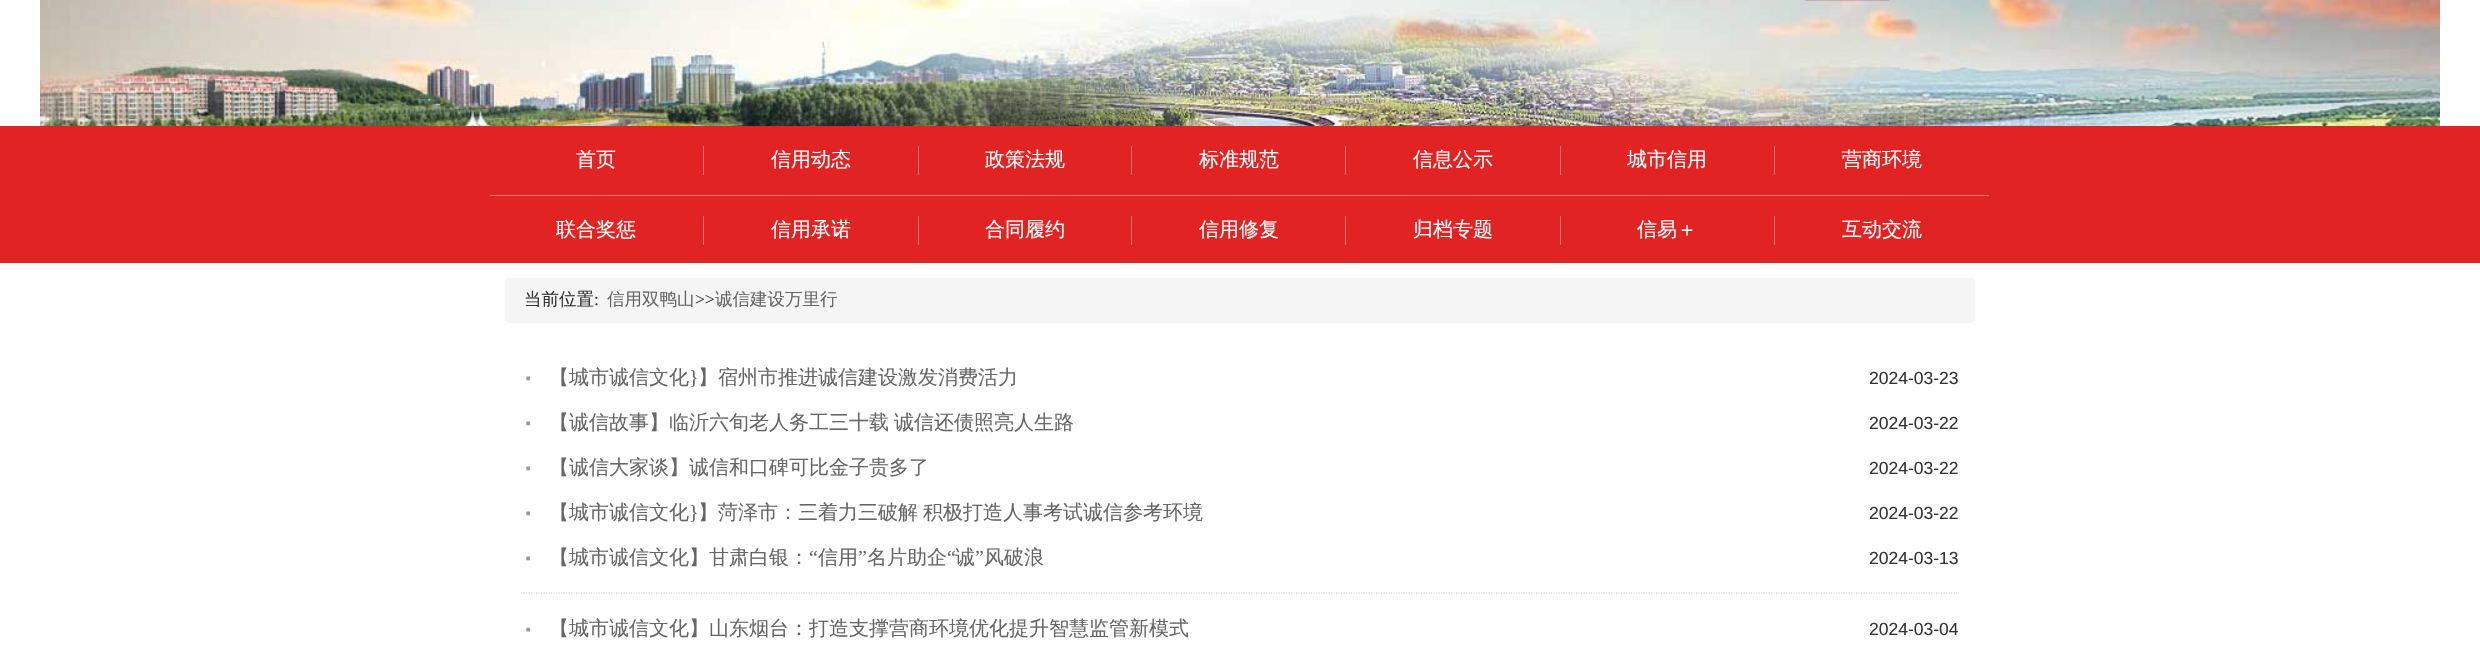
#include "include/core/SkBlurTypes.h"
#include "include/core/SkCanvas.h"
#include "include/core/SkData.h"
#include "include/core/SkFont.h"
#include "include/core/SkFontMgr.h"
#include "include/core/SkImage.h"
#include "include/core/SkMaskFilter.h"
#include "include/core/SkPaint.h"
#include "include/core/SkPathBuilder.h"
#include "include/core/SkTextBlob.h"
#include "include/effects/SkDashPathEffect.h"
#include "include/effects/SkGradientShader.h"
#include "include/utils/SkParsePath.h"

extern sk_sp<SkFontMgr> fontMgr;

void draw(SkCanvas* canvas) {
    SkPaint p;
    p.setAntiAlias(true);
    auto font = [&](const char* family, int weight, float size, bool italic = false) {
        SkFontStyle style(weight, SkFontStyle::kNormal_Width,
            italic ? SkFontStyle::kItalic_Slant : SkFontStyle::kUpright_Slant);
        SkFont result(fontMgr->matchFamilyStyle(family, style), size);
        result.setSubpixel(true);
        return result;
    };
    auto drawTracked = [&](const char* s, float x, float y, const SkFont& font, const SkPaint& ink, float letter, float word) {
        std::vector<SkGlyphID> glyphs(font.countText(s, strlen(s), SkTextEncoding::kUTF8));
        std::vector<float> xs(glyphs.size());
        font.textToGlyphs(s, strlen(s), SkTextEncoding::kUTF8, glyphs);
        font.getXPos(glyphs, xs, x);
        float extra = 0;
        for (size_t i = 0; i < glyphs.size(); i++) {
            xs[i] += extra;
            extra += letter + word * (glyphs[i] == font.unicharToGlyph(' '));
        }
        canvas->drawTextBlob(SkTextBlob::MakeFromPosHGlyphs(glyphs, xs, y, font), 0, 0, ink);
    };
    auto drawPhoto = [&](const char* path, float l, float t, float r, float b) {
        auto image = SkImages::DeferredFromEncodedData(SkData::MakeFromFileName(path));
        canvas->drawImageRect(image, SkRect::MakeLTRB(l, t, r, b), SkSamplingOptions());
    };
    canvas->clear(0xFFFFFFFF);
    drawPhoto("media/1.png", 40, 0, 2440, 126);
    drawPhoto("media/2.png", 1805, 0, 1889, 1);
    {
        const struct { float l, t, r, b; SkColor color; } items[] = {
            {0, 126, 2480, 263, 0xFFE22323},
            {490, 195, 1990, 196, 0xFFEC7272},
            {703, 146, 704, 175, 0xFFEC7272},
        };
        for (auto [l, t, r, b, color] : items) {
            p.setColor(color);
            canvas->drawRect(SkRect::MakeLTRB(l, t, r, b), p);
        }
    }
    auto font1 = font("WenQuanYi Zen Hei", 500, 20);
    p.setColor(0xFFFFFFFF);
    canvas->drawString("首页", 576, 166, font1, p);
    p.setColor(0xFFEC7272);
    canvas->drawRect(SkRect::MakeLTRB(918, 146, 919, 175), p);
    p.setColor(0xFFFFFFFF);
    canvas->drawString("信用动态", 771, 166, font1, p);
    p.setColor(0xFFEC7272);
    canvas->drawRect(SkRect::MakeLTRB(1131, 146, 1132, 175), p);
    p.setColor(0xFFFFFFFF);
    canvas->drawString("政策法规", 985, 166, font1, p);
    p.setColor(0xFFEC7272);
    canvas->drawRect(SkRect::MakeLTRB(1345, 146, 1346, 175), p);
    p.setColor(0xFFFFFFFF);
    canvas->drawString("标准规范", 1199, 166, font1, p);
    p.setColor(0xFFEC7272);
    canvas->drawRect(SkRect::MakeLTRB(1560, 146, 1561, 175), p);
    p.setColor(0xFFFFFFFF);
    canvas->drawString("信息公示", 1413, 166, font1, p);
    p.setColor(0xFFEC7272);
    canvas->drawRect(SkRect::MakeLTRB(1774, 146, 1775, 175), p);
    p.setColor(0xFFFFFFFF);
    canvas->drawString("城市信用", 1627, 166, font1, p);
    canvas->drawString("营商环境", 1842, 166, font1, p);
    p.setColor(0xFFEC7272);
    canvas->drawRect(SkRect::MakeLTRB(703, 216, 704, 245), p);
    p.setColor(0xFFFFFFFF);
    canvas->drawString("联合奖惩", 556, 236, font1, p);
    p.setColor(0xFFEC7272);
    canvas->drawRect(SkRect::MakeLTRB(918, 216, 919, 245), p);
    p.setColor(0xFFFFFFFF);
    canvas->drawString("信用承诺", 771, 236, font1, p);
    p.setColor(0xFFEC7272);
    canvas->drawRect(SkRect::MakeLTRB(1131, 216, 1132, 245), p);
    p.setColor(0xFFFFFFFF);
    canvas->drawString("合同履约", 985, 236, font1, p);
    p.setColor(0xFFEC7272);
    canvas->drawRect(SkRect::MakeLTRB(1345, 216, 1346, 245), p);
    p.setColor(0xFFFFFFFF);
    canvas->drawString("信用修复", 1199, 236, font1, p);
    p.setColor(0xFFEC7272);
    canvas->drawRect(SkRect::MakeLTRB(1560, 216, 1561, 245), p);
    p.setColor(0xFFFFFFFF);
    canvas->drawString("归档专题", 1413, 236, font1, p);
    p.setColor(0xFFEC7272);
    canvas->drawRect(SkRect::MakeLTRB(1774, 216, 1775, 245), p);
    p.setColor(0xFFFFFFFF);
    canvas->drawString("信易＋", 1637, 236, font1, p);
    canvas->drawString("互动交流", 1842, 236, font1, p);
    p.setColor(0xFFE22323);
    canvas->drawRect(SkRect::MakeLTRB(1989, 195, 1990, 196), p);
    p.setColor(0xFFF5F5F5);
    canvas->drawRoundRect(SkRect::MakeLTRB(505, 278, 1975, 323), 5, 5, p);
    auto font2 = font("WenQuanYi Zen Hei", 500, 17.5f);
    p.setColor(0xFF333333);
    canvas->drawString("当前位置", 524, 305, font2, p);
    auto font3 = font("Liberation Serif", 400, 17.5f);
    canvas->drawString(":", 594, 305, font3, p);
    p.setColor(0xFF666666);
    canvas->drawString("信用双鸭山", 607, 305, font2, p);
    p.setColor(0xFF333333);
    canvas->drawString(">>", 695, 305, font3, p);
    p.setColor(0xFF666666);
    canvas->drawString("诚信建设万里行", 715, 305, font2, p);
    drawPhoto("media/3.png", 526, 376, 531, 381);
    canvas->drawString("【城市诚信文化", 549, 384, font1, p);
    auto font4 = font("Liberation Serif", 400, 20);
    canvas->drawString("}", 689, 384, font4, p);
    canvas->drawString("】宿州市推进诚信建设激发消费活力", 698, 384, font1, p);
    auto font5 = font("Liberation Sans", 400, 17.5f);
    p.setColor(0xFF333333);
    canvas->drawString("2024-03-23", 1869, 384, font5, p);
    drawPhoto("media/3.png", 526, 421, 531, 426);
    p.setColor(0xFF666666);
    drawTracked("【诚信故事】临沂六旬老人务工三十载 诚信还债照亮人生路", 549, 429, font1, p, 0, -1);
    p.setColor(0xFF333333);
    canvas->drawString("2024-03-22", 1869, 429, font5, p);
    drawPhoto("media/3.png", 526, 466, 531, 471);
    p.setColor(0xFF666666);
    canvas->drawString("【诚信大家谈】诚信和口碑可比金子贵多了", 549, 474, font1, p);
    p.setColor(0xFF333333);
    canvas->drawString("2024-03-22", 1869, 474, font5, p);
    drawPhoto("media/3.png", 526, 511, 531, 516);
    p.setColor(0xFF666666);
    canvas->drawString("【城市诚信文化", 549, 519, font1, p);
    canvas->drawString("}", 689, 519, font4, p);
    drawTracked("】菏泽市：三着力三破解 积极打造人事考试诚信参考环境", 698, 519, font1, p, 0, -1);
    p.setColor(0xFF333333);
    canvas->drawString("2024-03-22", 1869, 519, font5, p);
    p.setStyle(SkPaint::kStroke_Style);
    p.setStrokeWidth(1.2f);
    p.setColor(0xFFCCCCCC);
    p.setPathEffect(SkDashPathEffect::Make({{1.25f, 1.25f}}, 0));
    canvas->drawPath(SkPathBuilder().moveTo(521, 593).lineTo(1959, 593).detach(), p);
    p.setPathEffect(nullptr);
    drawPhoto("media/3.png", 526, 556, 531, 561);
    p.setStyle(SkPaint::kFill_Style);
    p.setColor(0xFF666666);
    canvas->drawString("【城市诚信文化】甘肃白银：", 549, 564, font1, p);
    canvas->drawString("“", 809, 564, font4, p);
    canvas->drawString("信用", 818, 564, font1, p);
    canvas->drawString("”", 858, 564, font4, p);
    canvas->drawString("名片助企", 867, 564, font1, p);
    canvas->drawString("“", 947, 564, font4, p);
    canvas->drawString("诚", 955, 564, font1, p);
    canvas->drawString("”", 975, 564, font4, p);
    canvas->drawString("风破浪", 984, 564, font1, p);
    p.setColor(0xFF333333);
    canvas->drawString("2024-03-13", 1869, 564, font5, p);
    drawPhoto("media/4.png", 526, 627, 531, 632);
    p.setColor(0xFF666666);
    canvas->drawString("【城市诚信文化】山东烟台：打造支撑营商环境优化提升智慧监管新模式", 549, 635, font1, p);
    p.setColor(0xFF333333);
    canvas->drawString("2024-03-04", 1869, 635, font5, p);
}
